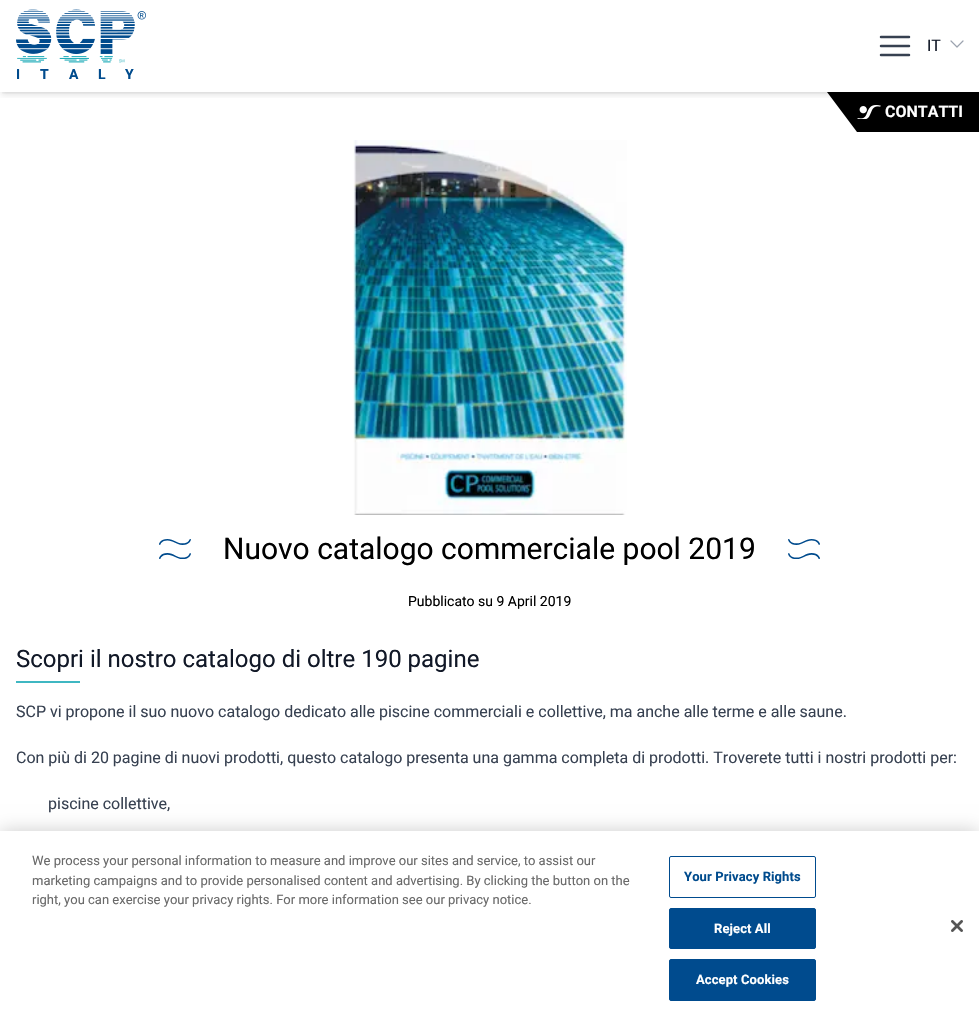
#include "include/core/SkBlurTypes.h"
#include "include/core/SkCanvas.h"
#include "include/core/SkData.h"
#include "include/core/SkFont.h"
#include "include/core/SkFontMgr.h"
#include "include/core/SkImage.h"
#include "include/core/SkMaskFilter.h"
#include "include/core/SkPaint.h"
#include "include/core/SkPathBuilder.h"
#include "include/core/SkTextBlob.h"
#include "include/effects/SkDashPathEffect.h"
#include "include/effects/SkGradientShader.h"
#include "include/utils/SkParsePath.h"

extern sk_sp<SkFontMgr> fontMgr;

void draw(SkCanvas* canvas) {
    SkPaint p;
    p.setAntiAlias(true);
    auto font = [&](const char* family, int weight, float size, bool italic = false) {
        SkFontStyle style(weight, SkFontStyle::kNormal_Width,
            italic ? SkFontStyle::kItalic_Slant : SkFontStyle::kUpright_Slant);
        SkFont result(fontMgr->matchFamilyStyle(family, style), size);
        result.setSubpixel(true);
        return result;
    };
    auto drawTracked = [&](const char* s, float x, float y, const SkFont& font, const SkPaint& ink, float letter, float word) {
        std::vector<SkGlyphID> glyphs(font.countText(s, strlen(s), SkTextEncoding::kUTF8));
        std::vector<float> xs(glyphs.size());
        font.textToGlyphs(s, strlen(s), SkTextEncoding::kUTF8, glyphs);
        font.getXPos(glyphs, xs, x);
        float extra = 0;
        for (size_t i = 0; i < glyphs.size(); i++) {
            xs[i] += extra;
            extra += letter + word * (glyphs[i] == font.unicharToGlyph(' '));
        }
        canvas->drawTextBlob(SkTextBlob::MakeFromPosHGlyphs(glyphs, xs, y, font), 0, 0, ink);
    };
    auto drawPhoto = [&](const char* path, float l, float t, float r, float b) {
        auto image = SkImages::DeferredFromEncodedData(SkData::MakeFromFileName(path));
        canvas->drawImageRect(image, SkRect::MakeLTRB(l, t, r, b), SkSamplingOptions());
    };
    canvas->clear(0xFFFFFFFF);
    canvas->save();
    canvas->clipRect(SkRect::MakeLTRB(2, 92, 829, 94));
    p.setColor(0x1A000000);
    p.setMaskFilter(SkMaskFilter::MakeBlur(kNormal_SkBlurStyle, 2));
    canvas->drawRect(SkRect::MakeLTRB(2, 4, 977, 92), p);
    p.setMaskFilter(nullptr);
    canvas->restore();
    canvas->save();
    canvas->clipRect(SkRect::MakeLTRB(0, 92, 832, 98));
    p.setMaskFilter(SkMaskFilter::MakeBlur(kNormal_SkBlurStyle, 3));
    canvas->drawRect(SkRect::MakeLTRB(1, 5, 978, 95), p);
    p.setMaskFilter(nullptr);
    canvas->restore();
    drawPhoto("media/1.png", 16, 9, 146, 63);
    auto font1 = font("Roboto", 700, 14);
    p.setColor(0xFF004B8D);
    {
        const struct { const char* s; float x, y; } items[] = {
            {"I", 16, 79},
            {"T", 40, 79},
            {"A", 69, 79},
            {"L", 98, 79},
            {"Y", 125, 79},
        };
        for (auto [s, x, y] : items) {
            canvas->drawString(s, x, y, font1, p);
        }
    }
    p.setStyle(SkPaint::kStroke_Style);
    p.setStrokeWidth(2.5f);
    p.setStrokeCap(SkPaint::kRound_Cap);
    p.setStrokeJoin(SkPaint::kRound_Join);
    p.setColor(0xFF374151);
    canvas->drawPath(SkPathBuilder().moveTo(881, 37).lineTo(909, 37).moveTo(881, 46).lineTo(909, 46).moveTo(881, 55).lineTo(909, 55).detach(), p);
    auto font2 = font("Roboto", 400, 16);
    p.setStyle(SkPaint::kFill_Style);
    p.setColor(0xFF111827);
    canvas->drawString("IT", 927, 51, font2, p);
    p.setStyle(SkPaint::kStroke_Style);
    p.setStrokeWidth(1.2f);
    p.setColor(0xFF9CA3AF);
    canvas->drawPath(SkPathBuilder().moveTo(963, 41).lineTo(957, 47).lineTo(951, 41).detach(), p);
    p.setStyle(SkPaint::kFill_Style);
    p.setColor(0xFF000000);
    canvas->drawRect(SkRect::MakeLTRB(857, 92, 979, 132), p);
    canvas->drawPath(SkPathBuilder().moveTo(857, 92).lineTo(857, 132).lineTo(827, 92).close().detach(), p);
    drawPhoto("media/2.png", 857, 105, 881, 119);
    auto font3 = font("Roboto", 700, 16);
    p.setColor(0xFFFFFFFF);
    canvas->drawString("CONTATTI", 885, 117, font3, p);
    drawPhoto("media/3.png", 353, 140, 627, 515);
    drawPhoto("media/4.png", 159, 539, 191, 559);
    auto font4 = font("Roboto", 400, 30);
    p.setColor(0xFF000000);
    canvas->drawString("Nuovo catalogo commerciale pool 2019", 223, 559, font4, p);
    drawPhoto("media/5.png", 788, 539, 820, 559);
    auto font5 = font("Roboto", 400, 14);
    canvas->drawString("Pubblicato su 9 April 2019", 408, 606, font5, p);
    auto font6 = font("Roboto", 400, 24);
    p.setColor(0xFF111827);
    canvas->drawString("Scopri il nostro catalogo di oltre 190 pagine", 16, 667, font6, p);
    p.setColor(0xFF3FB7C2);
    canvas->drawRect(SkRect::MakeLTRB(16, 681, 80, 683), p);
    p.setColor(0xFF374151);
    {
        const struct { const char* s; float x, y; } items[] = {
            {"SCP vi propone il suo nuovo catalogo dedicato alle piscine commerciali e collettive, ma anche alle terme e alle saune.", 16, 717},
            {"Con più di 20 pagine di nuovi prodotti, questo catalogo presenta una gamma completa di prodotti. Troverete tutti i nostri prodotti per:", 16, 763},
            {"piscine collettive,", 48, 809},
        };
        for (auto [s, x, y] : items) {
            canvas->drawString(s, x, y, font2, p);
        }
    }
    p.setColor(0x33000000);
    p.setMaskFilter(SkMaskFilter::MakeBlur(kNormal_SkBlurStyle, 9));
    canvas->drawRect(SkRect::MakeLTRB(0, 831, 979, 1021), p);
    p.setMaskFilter(nullptr);
    p.setColor(0xFFFFFFFF);
    canvas->drawRect(SkRect::MakeLTRB(0, 831, 979, 1021), p);
    auto font7 = font("Roboto", 400, 13);
    p.setColor(0xFF696969);
    {
        const struct { const char* s; float x, y; } items[] = {
            {"We process your personal information to measure and improve our sites and service, to assist our", 32, 865},
            {"marketing campaigns and to provide personalised content and advertising. By clicking the button on the", 32, 885},
            {"right, you can exercise your privacy rights. For more information see our privacy notice.", 32, 904},
        };
        for (auto [s, x, y] : items) {
            canvas->drawString(s, x, y, font7, p);
        }
    }
    p.setStyle(SkPaint::kStroke_Style);
    p.setStrokeWidth(1);
    p.setStrokeCap(SkPaint::kButt_Cap);
    p.setStrokeJoin(SkPaint::kMiter_Join);
    p.setColor(0xFF004B8E);
    canvas->drawRoundRect(SkRect::MakeLTRB(669.5f, 856.5f, 815.5f, 897.5f), 1.5f, 1.5f, p);
    auto font8 = font("Roboto", 700, 13);
    p.setStyle(SkPaint::kFill_Style);
    p.setColor(0xFF004B8D);
    drawTracked("Your Privacy Rights", 684, 881, font8, p, 0.1f, 0);
    p.setColor(0xFF004B8E);
    canvas->drawRoundRect(SkRect::MakeLTRB(669.5f, 908.5f, 815.5f, 948.5f), 1.5f, 1.5f, p);
    p.setStyle(SkPaint::kStroke_Style);
    canvas->drawRoundRect(SkRect::MakeLTRB(669.5f, 908.5f, 815.5f, 948.5f), 1.5f, 1.5f, p);
    p.setStyle(SkPaint::kFill_Style);
    p.setColor(0xFFFFFFFF);
    drawTracked("Reject All", 714, 933, font8, p, 0.1f, 0);
    p.setColor(0xFF004B8E);
    canvas->drawRoundRect(SkRect::MakeLTRB(669.5f, 959.5f, 815.5f, 1000.5f), 1.5f, 1.5f, p);
    p.setStyle(SkPaint::kStroke_Style);
    canvas->drawRoundRect(SkRect::MakeLTRB(669.5f, 959.5f, 815.5f, 1000.5f), 1.5f, 1.5f, p);
    p.setStyle(SkPaint::kFill_Style);
    p.setColor(0xFFFFFFFF);
    drawTracked("Accept Cookies", 696, 984, font8, p, 0.1f, 0);
    drawPhoto("media/6.png", 951, 920, 963, 932);
}
